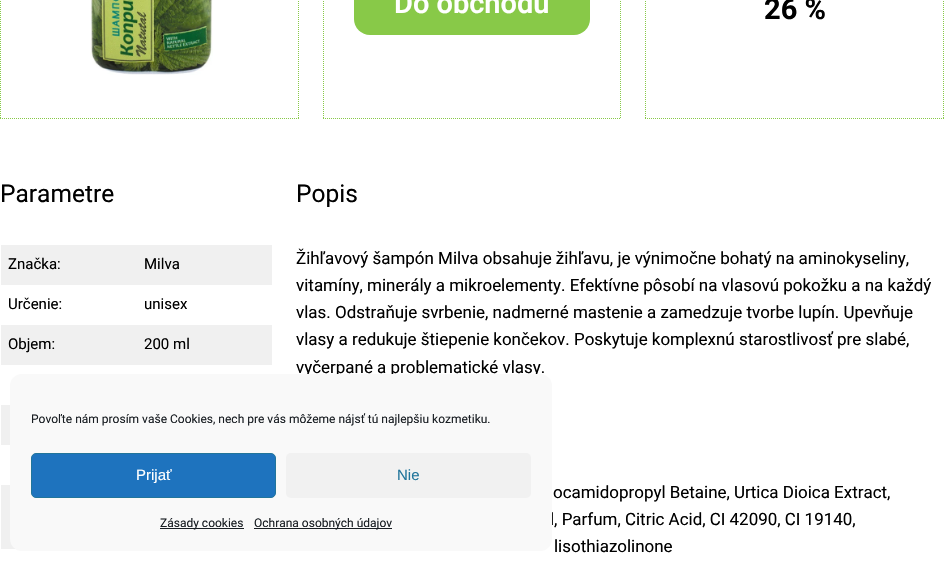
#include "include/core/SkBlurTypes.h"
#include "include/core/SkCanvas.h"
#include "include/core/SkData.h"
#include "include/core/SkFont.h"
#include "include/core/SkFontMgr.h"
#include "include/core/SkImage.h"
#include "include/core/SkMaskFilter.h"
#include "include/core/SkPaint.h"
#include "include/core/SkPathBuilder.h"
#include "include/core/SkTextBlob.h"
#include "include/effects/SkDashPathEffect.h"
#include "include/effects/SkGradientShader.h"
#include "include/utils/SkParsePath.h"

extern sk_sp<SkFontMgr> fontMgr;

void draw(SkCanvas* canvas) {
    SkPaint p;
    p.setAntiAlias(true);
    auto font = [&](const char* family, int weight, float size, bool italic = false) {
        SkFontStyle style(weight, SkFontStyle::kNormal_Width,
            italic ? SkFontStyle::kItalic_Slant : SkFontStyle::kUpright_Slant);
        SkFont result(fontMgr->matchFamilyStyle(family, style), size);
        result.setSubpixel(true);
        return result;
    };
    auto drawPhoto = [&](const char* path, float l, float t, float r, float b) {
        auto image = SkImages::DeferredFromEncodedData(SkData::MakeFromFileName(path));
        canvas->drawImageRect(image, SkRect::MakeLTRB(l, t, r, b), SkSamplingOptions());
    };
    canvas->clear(0xFFFFFFFF);
    p.setStyle(SkPaint::kStroke_Style);
    p.setStrokeWidth(1);
    p.setColor(0xFF88C948);
    p.setPathEffect(SkDashPathEffect::Make({{1, 1}}, 0));
    canvas->drawPath(SkPathBuilder().moveTo(298.5f, -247).lineTo(298.5f, 119).detach(), p);
    p.setPathEffect(nullptr);
    p.setPathEffect(SkDashPathEffect::Make({{1, 1}}, 0));
    canvas->drawPath(SkPathBuilder().moveTo(0, 118.5f).lineTo(299, 118.5f).detach(), p);
    p.setPathEffect(nullptr);
    p.setPathEffect(SkDashPathEffect::Make({{1, 1}}, 0));
    canvas->drawPath(SkPathBuilder().moveTo(0.5f, -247).lineTo(0.5f, 119).detach(), p);
    p.setPathEffect(nullptr);
    drawPhoto("media/1.png", 90, 0, 213, 75);
    p.setPathEffect(SkDashPathEffect::Make({{1, 1}}, 0));
    canvas->drawPath(SkPathBuilder().moveTo(620.5f, -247).lineTo(620.5f, 119).detach(), p);
    p.setPathEffect(nullptr);
    p.setPathEffect(SkDashPathEffect::Make({{1, 1}}, 0));
    canvas->drawPath(SkPathBuilder().moveTo(323, 118.5f).lineTo(621, 118.5f).detach(), p);
    p.setPathEffect(nullptr);
    p.setPathEffect(SkDashPathEffect::Make({{1, 1}}, 0));
    canvas->drawPath(SkPathBuilder().moveTo(323.5f, -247).lineTo(323.5f, 119).detach(), p);
    p.setPathEffect(nullptr);
    p.setStyle(SkPaint::kFill_Style);
    canvas->drawRoundRect(SkRect::MakeLTRB(354, -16, 590, 35), 16, 16, p);
    auto font1 = font("Roboto", 600, 29);
    p.setColor(0xFFFFFFFF);
    canvas->drawString("Do obchodu", 394, 13, font1, p);
    p.setStyle(SkPaint::kStroke_Style);
    p.setColor(0xFF88C948);
    p.setPathEffect(SkDashPathEffect::Make({{1, 1}}, 0));
    canvas->drawPath(SkPathBuilder().moveTo(943.5f, -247).lineTo(943.5f, 119).detach(), p);
    p.setPathEffect(nullptr);
    p.setPathEffect(SkDashPathEffect::Make({{1, 1}}, 0));
    canvas->drawPath(SkPathBuilder().moveTo(645, 118.5f).lineTo(944, 118.5f).detach(), p);
    p.setPathEffect(nullptr);
    p.setPathEffect(SkDashPathEffect::Make({{1, 1}}, 0));
    canvas->drawPath(SkPathBuilder().moveTo(645.5f, -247).lineTo(645.5f, 119).detach(), p);
    p.setPathEffect(nullptr);
    auto font2 = font("Roboto", 700, 29);
    p.setStyle(SkPaint::kFill_Style);
    p.setColor(0xFF000000);
    canvas->drawString("26 %", 764, 19, font2, p);
    auto font3 = font("Roboto", 400, 24.5f);
    canvas->drawString("Parametre", 0, 202, font3, p);
    p.setColor(0xFFF0F0F0);
    canvas->drawRect(SkRect::MakeLTRB(1, 245, 272, 285), p);
    auto font4 = font("Roboto", 400, 15);
    p.setColor(0xFF000000);
    {
        const struct { const char* s; float x, y; } items[] = {
            {"Značka:", 8, 269},
            {"Milva", 144, 269},
            {"Určenie:", 8, 309},
            {"unisex", 144, 309},
        };
        for (auto [s, x, y] : items) {
            canvas->drawString(s, x, y, font4, p);
        }
    }
    p.setColor(0xFFF0F0F0);
    canvas->drawRect(SkRect::MakeLTRB(1, 325, 272, 365), p);
    p.setColor(0xFF000000);
    canvas->drawString("Objem:", 8, 349, font4, p);
    canvas->drawString("200 ml", 144, 349, font4, p);
    p.setColor(0xFFF0F0F0);
    canvas->drawRect(SkRect::MakeLTRB(1, 405, 10, 445), p);
    canvas->drawRect(SkRect::MakeLTRB(1, 485, 16, 549), p);
    p.setColor(0xFF000000);
    canvas->drawString("Popis", 296, 202, font3, p);
    auto font5 = font("Roboto", 400, 16.95f);
    {
        const struct { const char* s; float x, y; } items[] = {
            {"Žihľavový šampón Milva obsahuje žihľavu, je výnimočne bohatý na aminokyseliny,", 296, 264},
            {"vitamíny, minerály a mikroelementy. Efektívne pôsobí na vlasovú pokožku a na každý", 296, 291},
            {"vlas. Odstraňuje svrbenie, nadmerné mastenie a zamedzuje tvorbe lupín. Upevňuje", 296, 318},
            {"vlasy a redukuje štiepenie končekov. Poskytuje komplexnú starostlivosť pre slabé,", 296, 345},
            {"vyčerpané a problematické vlasy.", 296, 373},
            {"ocamidopropyl Betaine, Urtica Dioica Extract,", 553, 498},
            {"l, Parfum, Citric Acid, CI 42090, CI 19140,", 550, 525},
            {"lisothiazolinone", 554, 552},
        };
        for (auto [s, x, y] : items) {
            canvas->drawString(s, x, y, font5, p);
        }
    }
    p.setColor(0xFFF9F9F9);
    canvas->drawRoundRect(SkRect::MakeLTRB(10, 374, 552, 551), 12, 12, p);
    auto font6 = font("Roboto", 400, 12);
    p.setColor(0xFF191E23);
    canvas->drawString("Povoľte nám prosím vaše Cookies, nech pre vás môžeme nájsť tú najlepšiu kozmetiku.", 31, 423, font6, p);
    p.setColor(0xFF1E73BE);
    canvas->drawRoundRect(SkRect::MakeLTRB(31.5f, 453.5f, 275.5f, 497.5f), 4.5f, 4.5f, p);
    p.setStyle(SkPaint::kStroke_Style);
    p.setColor(0xFF21759B);
    canvas->drawRoundRect(SkRect::MakeLTRB(31.5f, 453.5f, 275.5f, 497.5f), 4.5f, 4.5f, p);
    auto font7 = font("Liberation Sans", 400, 15);
    p.setStyle(SkPaint::kFill_Style);
    p.setColor(0xFFFFFFFF);
    canvas->drawString("Prijať", 136, 480, font7, p);
    p.setColor(0xFFF1F1F1);
    canvas->drawRoundRect(SkRect::MakeLTRB(286, 453, 531, 498), 5, 5, p);
    p.setColor(0xFF21759B);
    canvas->drawString("Nie", 397, 480, font7, p);
    p.setColor(0xFF191E23);
    canvas->drawRect(SkRect::MakeLTRB(160, 528, 244, 529), p);
    canvas->drawString("Zásady cookies", 160, 527, font6, p);
    canvas->drawRect(SkRect::MakeLTRB(254, 528, 392, 529), p);
    canvas->drawString("Ochrana osobných údajov", 254, 527, font6, p);
}
